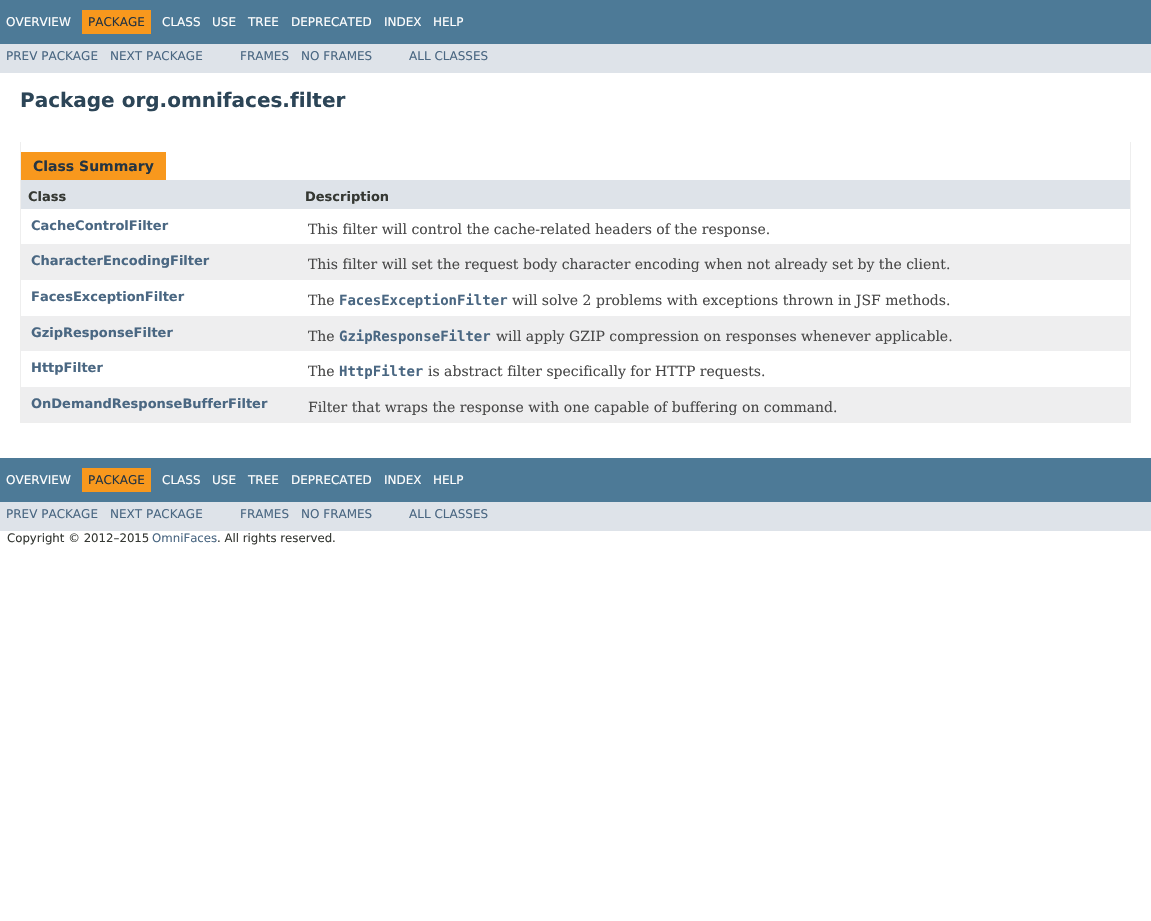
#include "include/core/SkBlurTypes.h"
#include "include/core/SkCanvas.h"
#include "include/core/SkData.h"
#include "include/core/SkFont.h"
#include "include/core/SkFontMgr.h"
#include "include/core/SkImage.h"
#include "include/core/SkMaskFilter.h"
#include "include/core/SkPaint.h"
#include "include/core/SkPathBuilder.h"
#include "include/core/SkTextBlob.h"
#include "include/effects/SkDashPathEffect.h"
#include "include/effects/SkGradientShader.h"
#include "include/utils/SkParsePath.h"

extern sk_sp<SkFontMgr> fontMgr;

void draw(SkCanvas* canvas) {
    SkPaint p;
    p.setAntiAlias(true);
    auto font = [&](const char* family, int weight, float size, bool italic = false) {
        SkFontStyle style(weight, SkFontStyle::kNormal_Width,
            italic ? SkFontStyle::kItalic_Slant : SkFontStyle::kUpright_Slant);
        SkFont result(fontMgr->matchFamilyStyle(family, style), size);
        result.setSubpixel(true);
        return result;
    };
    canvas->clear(0xFFFFFFFF);
    p.setColor(0xFF4D7A97);
    canvas->drawRect(SkRect::MakeLTRB(0, 0, 1151, 44), p);
    auto font1 = font("DejaVu Sans", 400, 12);
    p.setColor(0xFFFFFFFF);
    canvas->drawString("OVERVIEW", 6, 26, font1, p);
    p.setColor(0xFFF8981D);
    canvas->drawRect(SkRect::MakeLTRB(82, 10, 151, 34), p);
    p.setColor(0xFF253441);
    canvas->drawString("PACKAGE", 88, 26, font1, p);
    p.setColor(0xFFFFFFFF);
    {
        const struct { const char* s; float x, y; } items[] = {
            {"CLASS", 162, 26},
            {"USE", 212, 26},
            {"TREE", 248, 26},
            {"DEPRECATED", 291, 26},
            {"INDEX", 384, 26},
            {"HELP", 433, 26},
        };
        for (auto [s, x, y] : items) {
            canvas->drawString(s, x, y, font1, p);
        }
    }
    p.setColor(0xFFDEE3E9);
    canvas->drawRect(SkRect::MakeLTRB(0, 44, 1151, 73), p);
    p.setColor(0xFF4A6782);
    {
        const struct { const char* s; float x, y; } items[] = {
            {"PREV PACKAGE", 6, 60},
            {"NEXT PACKAGE", 110, 60},
            {"FRAMES", 240, 60},
            {"NO FRAMES", 301, 60},
            {"ALL CLASSES", 409, 60},
        };
        for (auto [s, x, y] : items) {
            canvas->drawString(s, x, y, font1, p);
        }
    }
    auto font2 = font("DejaVu Sans", 700, 20);
    p.setColor(0xFF2C4557);
    canvas->drawString("Package org.omnifaces.filter", 20, 107, font2, p);
    {
        const struct { float l, t, r, b; SkColor color; } items[] = {
            {1130, 142, 1131, 423, 0xFFEEEEEE},
            {20, 422, 1131, 423, 0xFFEEEEEE},
            {20, 142, 21, 423, 0xFFEEEEEE},
            {21, 152, 166, 180, 0xFFF8981D},
        };
        for (auto [l, t, r, b, color] : items) {
            p.setColor(color);
            canvas->drawRect(SkRect::MakeLTRB(l, t, r, b), p);
        }
    }
    auto font3 = font("DejaVu Sans", 700, 14);
    p.setColor(0xFF253441);
    canvas->drawString("Class Summary", 33, 171, font3, p);
    p.setColor(0xFFDEE3E9);
    canvas->drawRect(SkRect::MakeLTRB(21, 180, 1130, 209), p);
    auto font4 = font("DejaVu Sans", 700, 13);
    p.setColor(0xFF353833);
    canvas->drawString("Class", 28, 201, font4, p);
    canvas->drawString("Description", 305, 201, font4, p);
    p.setColor(0xFF4A6782);
    canvas->drawString("CacheControlFilter", 31, 230, font4, p);
    auto font5 = font("DejaVu Serif", 400, 14);
    p.setColor(0xFF474747);
    canvas->drawString("This filter will control the cache-related headers of the response.", 308, 234, font5, p);
    p.setColor(0xFFEEEEEF);
    canvas->drawRect(SkRect::MakeLTRB(21, 244, 1130, 280), p);
    p.setColor(0xFF4A6782);
    canvas->drawString("CharacterEncodingFilter", 31, 265, font4, p);
    p.setColor(0xFF474747);
    canvas->drawString("This filter will set the request body character encoding when not already set by the client.", 308, 269, font5, p);
    p.setColor(0xFF4A6782);
    canvas->drawString("FacesExceptionFilter", 31, 301, font4, p);
    p.setColor(0xFF474747);
    canvas->drawString("The", 308, 305, font5, p);
    auto font6 = font("DejaVu Sans Mono", 700, 14);
    p.setColor(0xFF4A6782);
    canvas->drawString("FacesExceptionFilter", 339, 305, font6, p);
    p.setColor(0xFF474747);
    canvas->drawString("will solve 2 problems with exceptions thrown in JSF methods.", 512, 305, font5, p);
    p.setColor(0xFFEEEEEF);
    canvas->drawRect(SkRect::MakeLTRB(21, 316, 1130, 351), p);
    p.setColor(0xFF4A6782);
    canvas->drawString("GzipResponseFilter", 31, 337, font4, p);
    p.setColor(0xFF474747);
    canvas->drawString("The", 308, 341, font5, p);
    p.setColor(0xFF4A6782);
    canvas->drawString("GzipResponseFilter", 339, 341, font6, p);
    p.setColor(0xFF474747);
    canvas->drawString("will apply GZIP compression on responses whenever applicable.", 496, 341, font5, p);
    p.setColor(0xFF4A6782);
    canvas->drawString("HttpFilter", 31, 372, font4, p);
    p.setColor(0xFF474747);
    canvas->drawString("The", 308, 376, font5, p);
    p.setColor(0xFF4A6782);
    canvas->drawString("HttpFilter", 339, 376, font6, p);
    p.setColor(0xFF474747);
    canvas->drawString("is abstract filter specifically for HTTP requests.", 428, 376, font5, p);
    p.setColor(0xFFEEEEEF);
    canvas->drawRect(SkRect::MakeLTRB(21, 387, 1130, 422), p);
    p.setColor(0xFF4A6782);
    canvas->drawString("OnDemandResponseBufferFilter", 31, 408, font4, p);
    p.setColor(0xFF474747);
    canvas->drawString("Filter that wraps the response with one capable of buffering on command.", 308, 412, font5, p);
    p.setColor(0xFF4D7A97);
    canvas->drawRect(SkRect::MakeLTRB(0, 458, 1151, 502), p);
    p.setColor(0xFFFFFFFF);
    canvas->drawString("OVERVIEW", 6, 484, font1, p);
    p.setColor(0xFFF8981D);
    canvas->drawRect(SkRect::MakeLTRB(82, 468, 151, 492), p);
    p.setColor(0xFF253441);
    canvas->drawString("PACKAGE", 88, 484, font1, p);
    p.setColor(0xFFFFFFFF);
    {
        const struct { const char* s; float x, y; } items[] = {
            {"CLASS", 162, 484},
            {"USE", 212, 484},
            {"TREE", 248, 484},
            {"DEPRECATED", 291, 484},
            {"INDEX", 384, 484},
            {"HELP", 433, 484},
        };
        for (auto [s, x, y] : items) {
            canvas->drawString(s, x, y, font1, p);
        }
    }
    p.setColor(0xFFDEE3E9);
    canvas->drawRect(SkRect::MakeLTRB(0, 502, 1151, 531), p);
    p.setColor(0xFF4A6782);
    {
        const struct { const char* s; float x, y; } items[] = {
            {"PREV PACKAGE", 6, 518},
            {"NEXT PACKAGE", 110, 518},
            {"FRAMES", 240, 518},
            {"NO FRAMES", 301, 518},
            {"ALL CLASSES", 409, 518},
        };
        for (auto [s, x, y] : items) {
            canvas->drawString(s, x, y, font1, p);
        }
    }
    auto font7 = font("DejaVu Sans", 400, 11.75f);
    p.setColor(0xFF353833);
    canvas->drawString("Copyright © 2012–2015", 7, 542, font7, p);
    p.setColor(0xFF4A6782);
    canvas->drawString("OmniFaces", 152, 542, font7, p);
    p.setColor(0xFF353833);
    canvas->drawString(". All rights reserved.", 217, 542, font7, p);
}
